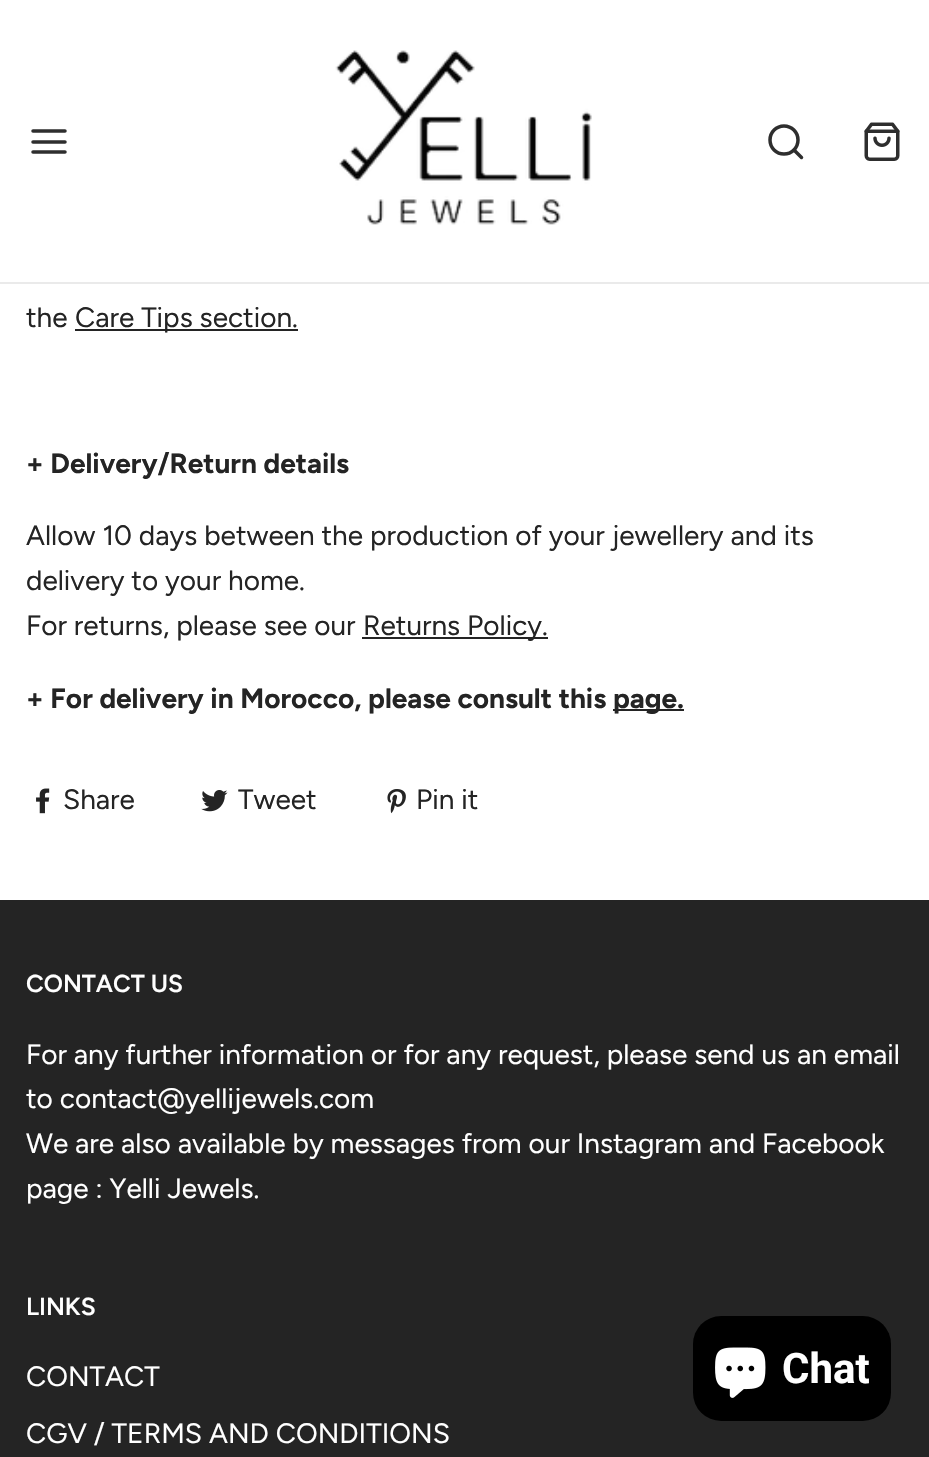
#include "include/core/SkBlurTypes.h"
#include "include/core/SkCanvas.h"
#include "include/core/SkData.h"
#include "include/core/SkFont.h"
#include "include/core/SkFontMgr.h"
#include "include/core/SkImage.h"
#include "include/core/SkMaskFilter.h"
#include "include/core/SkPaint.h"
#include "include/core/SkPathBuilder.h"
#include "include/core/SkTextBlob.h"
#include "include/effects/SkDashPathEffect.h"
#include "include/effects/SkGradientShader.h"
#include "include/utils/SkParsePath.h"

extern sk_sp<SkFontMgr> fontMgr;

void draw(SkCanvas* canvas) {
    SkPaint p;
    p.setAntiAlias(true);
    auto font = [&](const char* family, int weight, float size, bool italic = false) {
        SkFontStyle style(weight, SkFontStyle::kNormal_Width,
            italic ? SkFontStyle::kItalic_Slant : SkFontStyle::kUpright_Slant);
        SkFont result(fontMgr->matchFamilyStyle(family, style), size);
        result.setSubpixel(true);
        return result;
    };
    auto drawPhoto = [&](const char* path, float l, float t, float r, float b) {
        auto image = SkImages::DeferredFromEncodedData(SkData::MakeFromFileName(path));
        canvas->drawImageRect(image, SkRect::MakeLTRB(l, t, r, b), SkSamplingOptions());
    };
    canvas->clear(0xFFFFFFFF);
    p.setColor(0xFFEAEAEA);
    canvas->drawRect(SkRect::MakeLTRB(0, 282, 929, 284), p);
    p.setStyle(SkPaint::kStroke_Style);
    p.setStrokeWidth(3.5f);
    p.setStrokeCap(SkPaint::kRound_Cap);
    p.setStrokeJoin(SkPaint::kRound_Join);
    p.setColor(0xFF2E2E2E);
    canvas->drawPath(SkPathBuilder().moveTo(33, 142).lineTo(65, 142).moveTo(33, 131).lineTo(65, 131).moveTo(33, 152).lineTo(65, 152).detach(), p);
    drawPhoto("media/1.png", 335, 50, 592, 225);
    p.setStrokeCap(SkPaint::kButt_Cap);
    p.setStrokeJoin(SkPaint::kMiter_Join);
    canvas->drawCircle(784, 140, 14, p);
    p.setStrokeCap(SkPaint::kRound_Cap);
    p.setStrokeJoin(SkPaint::kRound_Join);
    canvas->drawPath(SkPathBuilder().moveTo(801.5f, 157.5f).lineTo(794, 150).detach(), p);
    drawPhoto("media/2.png", 864, 122, 900, 161);
    auto font1 = font("Figtree", 400, 28);
    p.setStyle(SkPaint::kFill_Style);
    p.setColor(0xFF242424);
    canvas->drawString("the", 26, 327, font1, p);
    canvas->drawRect(SkRect::MakeLTRB(75, 329, 298, 331), p);
    canvas->drawString("Care Tips section.", 75, 327, font1, p);
    auto font2 = font("Figtree", 700, 28);
    canvas->drawString("+ Delivery/Return details", 26, 473, font2, p);
    {
        const struct { const char* s; float x, y; } items[] = {
            {"Allow 10 days between the production of your jewellery and its", 26, 545},
            {"delivery to your home.", 26, 590},
            {"For returns, please see our", 26, 635},
        };
        for (auto [s, x, y] : items) {
            canvas->drawString(s, x, y, font1, p);
        }
    }
    canvas->drawRect(SkRect::MakeLTRB(362, 637, 548, 639), p);
    canvas->drawString("Returns Policy.", 363, 635, font1, p);
    canvas->drawString("+ For delivery in Morocco, please consult this", 26, 708, font2, p);
    canvas->drawRect(SkRect::MakeLTRB(613, 709, 684, 711), p);
    canvas->drawString("page.", 613, 708, font2, p);
    drawPhoto("media/3.png", 36, 788, 50, 814);
    canvas->drawString("Share", 63, 809, font1, p);
    drawPhoto("media/4.png", 201, 790, 228, 812);
    canvas->drawString("Tweet", 238, 809, font1, p);
    drawPhoto("media/5.png", 387, 789, 406, 814);
    canvas->drawString("Pin it", 416, 809, font1, p);
    canvas->drawRect(SkRect::MakeLTRB(0, 900, 929, 1457), p);
    auto font3 = font("Figtree", 600, 24.5f);
    p.setColor(0xFFFFFFFF);
    canvas->drawString("CONTACT US", 26, 992, font3, p);
    {
        const struct { const char* s; float x, y; } items[] = {
            {"For any further information or for any request, please send us an email", 26, 1064},
            {"to contact@yellijewels.com", 26, 1108},
            {"We are also available by messages from our Instagram and Facebook", 26, 1153},
            {"page : Yelli Jewels.", 26, 1198},
        };
        for (auto [s, x, y] : items) {
            canvas->drawString(s, x, y, font1, p);
        }
    }
    canvas->drawString("LINKS", 26, 1315, font3, p);
    canvas->drawString("CONTACT", 26, 1386, font1, p);
    canvas->drawString("CGV / TERMS AND CONDITIONS", 26, 1443, font1, p);
    p.setColor(0xFF000000);
    canvas->drawRoundRect(SkRect::MakeLTRB(693, 1316, 891, 1421), 28, 28, p);
    drawPhoto("media/6.png", 715, 1347, 766, 1398);
    auto font4 = font("Roboto", 700, 42);
    p.setColor(0xFFFFFFFF);
    canvas->drawString("Chat", 782, 1383, font4, p);
}
